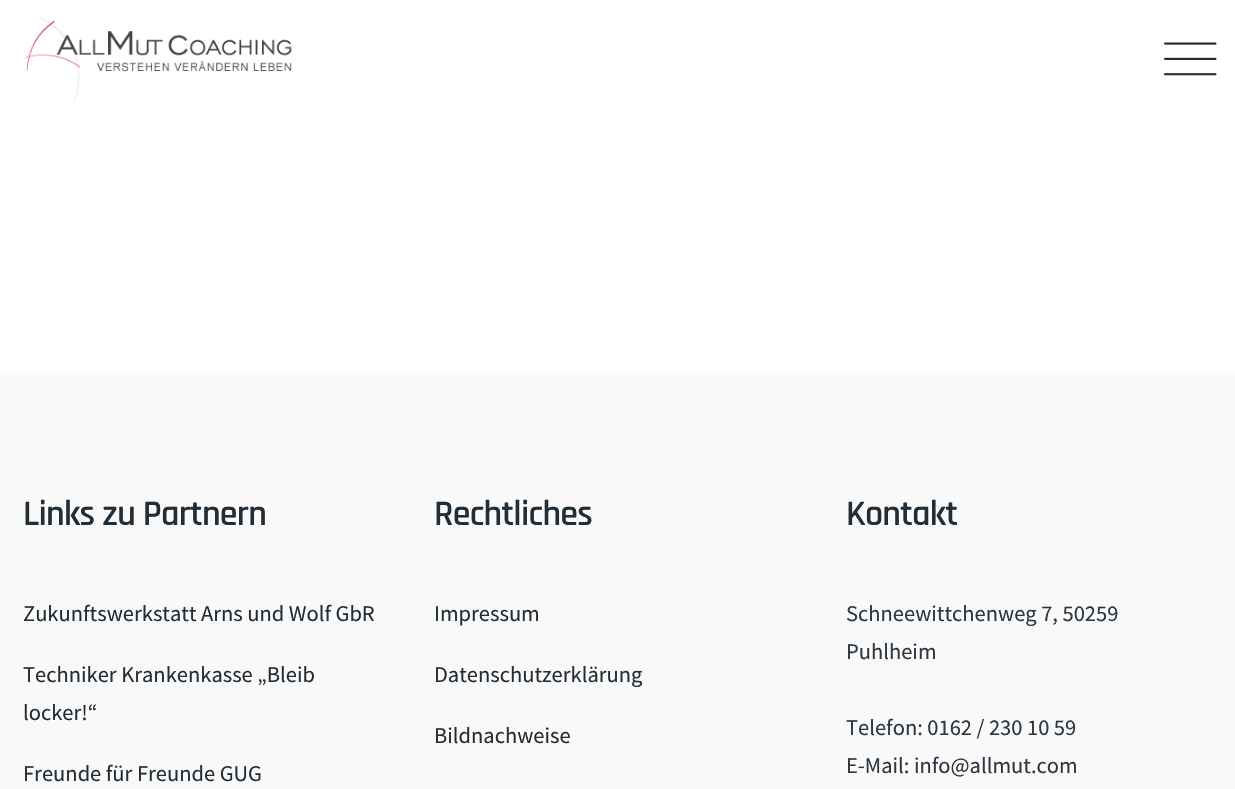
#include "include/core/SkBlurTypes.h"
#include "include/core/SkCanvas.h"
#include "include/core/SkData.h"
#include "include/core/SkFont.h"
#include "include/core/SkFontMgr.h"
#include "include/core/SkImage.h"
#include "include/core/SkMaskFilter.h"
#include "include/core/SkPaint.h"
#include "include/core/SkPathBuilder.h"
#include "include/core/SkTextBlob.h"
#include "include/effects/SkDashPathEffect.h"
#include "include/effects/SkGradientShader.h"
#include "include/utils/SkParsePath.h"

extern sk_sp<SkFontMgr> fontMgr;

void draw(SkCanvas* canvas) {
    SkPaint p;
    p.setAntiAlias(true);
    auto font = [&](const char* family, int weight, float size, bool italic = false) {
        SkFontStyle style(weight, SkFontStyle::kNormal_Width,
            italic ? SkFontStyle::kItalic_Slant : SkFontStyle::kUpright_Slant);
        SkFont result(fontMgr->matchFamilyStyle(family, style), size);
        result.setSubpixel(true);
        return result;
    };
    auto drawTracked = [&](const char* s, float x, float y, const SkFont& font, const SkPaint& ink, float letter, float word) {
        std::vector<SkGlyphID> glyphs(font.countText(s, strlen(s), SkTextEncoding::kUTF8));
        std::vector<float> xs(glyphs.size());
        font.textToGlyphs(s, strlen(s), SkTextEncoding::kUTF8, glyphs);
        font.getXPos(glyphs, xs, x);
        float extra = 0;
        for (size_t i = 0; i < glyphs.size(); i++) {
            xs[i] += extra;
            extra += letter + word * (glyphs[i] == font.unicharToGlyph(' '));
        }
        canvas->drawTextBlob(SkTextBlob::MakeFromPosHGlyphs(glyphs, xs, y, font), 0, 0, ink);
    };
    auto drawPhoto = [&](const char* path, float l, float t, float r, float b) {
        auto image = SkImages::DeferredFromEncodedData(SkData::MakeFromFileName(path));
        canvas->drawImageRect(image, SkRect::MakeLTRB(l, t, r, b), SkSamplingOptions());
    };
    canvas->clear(0xFFFFFFFF);
    drawPhoto("media/1.png", 24, 17, 292, 103);
    drawPhoto("media/2.png", 1164, 42, 1217, 76);
    p.setColor(0xFFF9F9F9);
    canvas->drawRect(SkRect::MakeLTRB(0, 375, 1235, 789), p);
    auto font1 = font("Rajdhani", 600, 36);
    p.setColor(0xFF222D35);
    drawTracked("Links zu Partnern", 23, 525, font1, p, -0.75f, 0);
    auto font2 = font("Source Sans Pro", 400, 22.5f);
    {
        const struct { const char* s; float x, y; } items[] = {
            {"Zukunftswerkstatt Arns und Wolf GbR", 23, 621},
            {"Techniker Krankenkasse „Bleib", 23, 682},
            {"locker!“", 23, 720},
            {"Freunde für Freunde GUG", 23, 781},
        };
        for (auto [s, x, y] : items) {
            canvas->drawString(s, x, y, font2, p);
        }
    }
    drawTracked("Rechtliches", 434, 525, font1, p, -0.75f, 0);
    {
        const struct { const char* s; float x, y; } items[] = {
            {"Impressum", 434, 621},
            {"Datenschutzerklärung", 434, 682},
            {"Bildnachweise", 434, 743},
        };
        for (auto [s, x, y] : items) {
            canvas->drawString(s, x, y, font2, p);
        }
    }
    drawTracked("Kontakt", 846, 525, font1, p, -0.75f, 0);
    p.setColor(0xFF2D373F);
    {
        const struct { const char* s; float x, y; } items[] = {
            {"Schneewittchenweg 7, 50259", 846, 621},
            {"Puhlheim", 846, 659},
            {"Telefon: 0162 / 230 10 59", 846, 735},
            {"E-Mail: info@allmut.com", 846, 773},
        };
        for (auto [s, x, y] : items) {
            canvas->drawString(s, x, y, font2, p);
        }
    }
}
